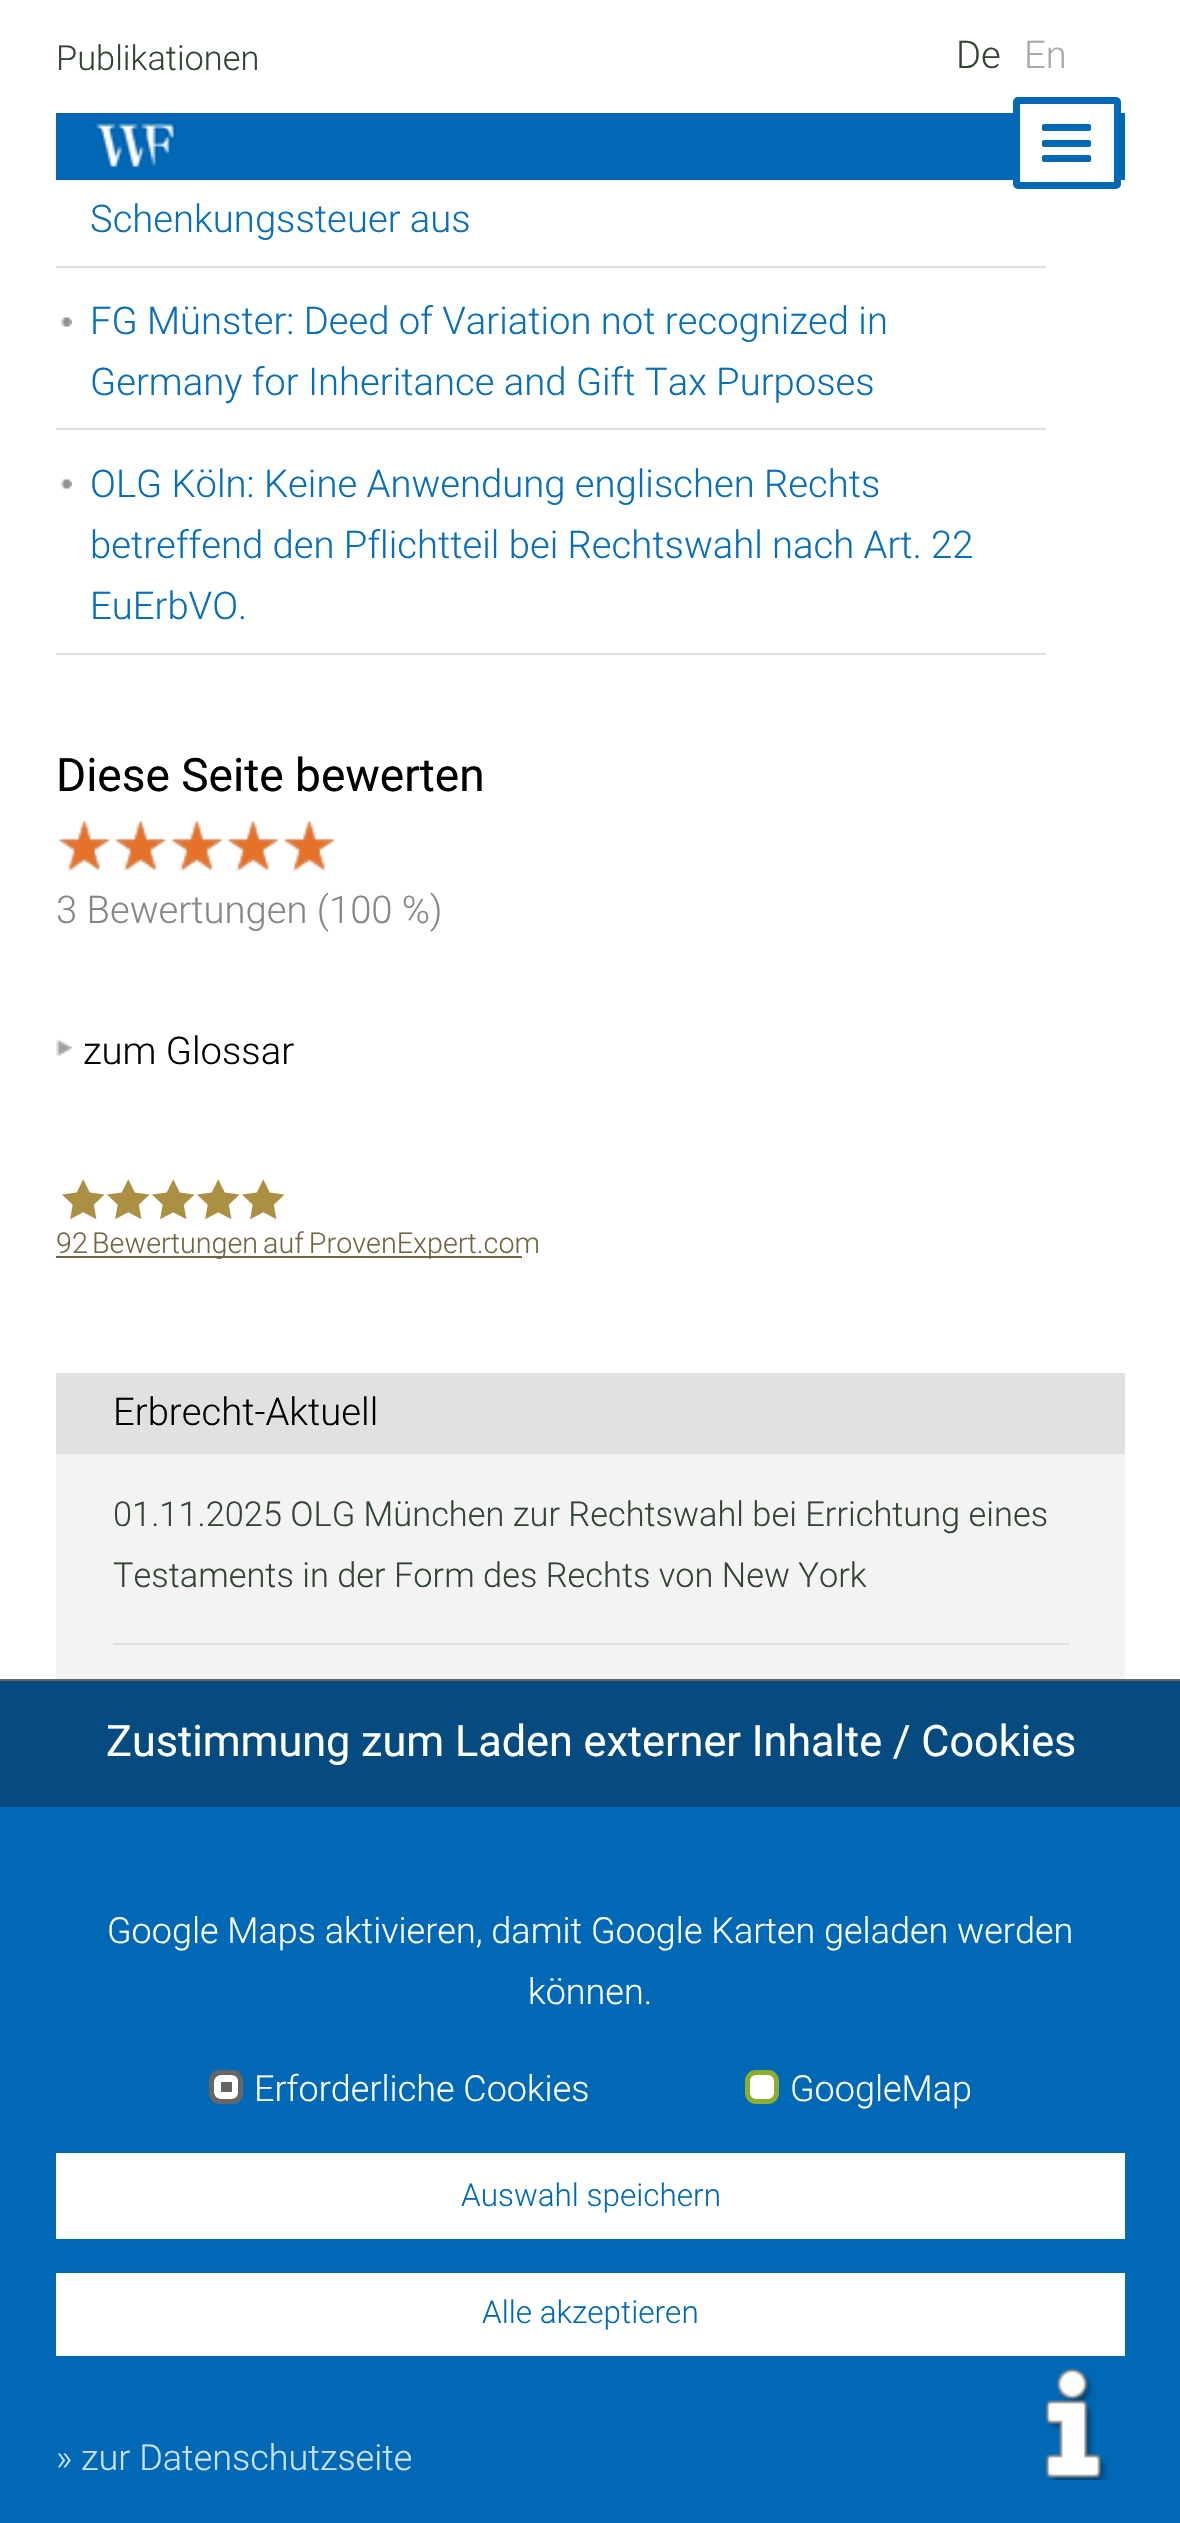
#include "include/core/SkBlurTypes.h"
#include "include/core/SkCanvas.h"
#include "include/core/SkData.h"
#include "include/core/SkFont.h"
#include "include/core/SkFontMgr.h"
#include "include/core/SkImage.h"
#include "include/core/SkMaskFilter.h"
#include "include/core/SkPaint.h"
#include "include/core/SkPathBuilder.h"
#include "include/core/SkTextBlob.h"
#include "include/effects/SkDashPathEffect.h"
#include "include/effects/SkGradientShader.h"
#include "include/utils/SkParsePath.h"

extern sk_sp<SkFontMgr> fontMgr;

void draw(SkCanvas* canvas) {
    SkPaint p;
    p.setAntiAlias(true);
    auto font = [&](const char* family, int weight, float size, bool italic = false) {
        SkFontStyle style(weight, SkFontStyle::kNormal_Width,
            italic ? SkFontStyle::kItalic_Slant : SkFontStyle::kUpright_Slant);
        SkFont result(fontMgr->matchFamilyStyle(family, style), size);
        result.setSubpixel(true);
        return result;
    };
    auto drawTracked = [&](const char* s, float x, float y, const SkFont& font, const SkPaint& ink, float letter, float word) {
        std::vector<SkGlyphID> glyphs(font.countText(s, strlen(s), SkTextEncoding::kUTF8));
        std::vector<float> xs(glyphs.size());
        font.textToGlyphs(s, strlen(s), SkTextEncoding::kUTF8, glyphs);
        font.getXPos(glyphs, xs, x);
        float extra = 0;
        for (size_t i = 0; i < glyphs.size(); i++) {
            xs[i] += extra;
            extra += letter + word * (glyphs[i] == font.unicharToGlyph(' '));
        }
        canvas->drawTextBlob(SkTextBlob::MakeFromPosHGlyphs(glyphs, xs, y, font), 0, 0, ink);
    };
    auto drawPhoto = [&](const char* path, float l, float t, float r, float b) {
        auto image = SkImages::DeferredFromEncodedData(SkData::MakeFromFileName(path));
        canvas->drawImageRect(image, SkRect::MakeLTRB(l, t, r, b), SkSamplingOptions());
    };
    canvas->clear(0xFFFFFFFF);
    auto font1 = font("Roboto", 300, 34.4f);
    p.setColor(0xFF334334);
    canvas->drawString("Publikationen", 56, 70, font1, p);
    auto font2 = font("Roboto", 300, 38.25f);
    canvas->drawString("De", 956, 68, font2, p);
    p.setColor(0xFFAAAAAA);
    canvas->drawString("En", 1024, 68, font2, p);
    p.setColor(0xFF0168B5);
    canvas->drawRect(SkRect::MakeLTRB(56, 113, 1125, 180), p);
    p.setColor(0xFFFFFFFF);
    canvas->drawRoundRect(SkRect::MakeLTRB(1016.5f, 100.5f, 1117.5f, 185.5f), 1.5f, 1.5f, p);
    p.setStyle(SkPaint::kStroke_Style);
    p.setStrokeWidth(7);
    p.setColor(0xFF0168B5);
    canvas->drawRoundRect(SkRect::MakeLTRB(1016.5f, 100.5f, 1117.5f, 185.5f), 1.5f, 1.5f, p);
    p.setStyle(SkPaint::kFill_Style);
    canvas->drawRoundRect(SkRect::MakeLTRB(1042, 124, 1091, 131), 2, 2, p);
    canvas->drawRoundRect(SkRect::MakeLTRB(1042, 140, 1091, 147), 2, 2, p);
    canvas->drawRoundRect(SkRect::MakeLTRB(1042, 155, 1091, 162), 2, 2, p);
    drawPhoto("media/1.png", 95, 121, 176, 168);
    p.setColor(0xFFDEDEDE);
    canvas->drawRect(SkRect::MakeLTRB(56, 266, 1046, 268), p);
    p.setColor(0xFF086EB9);
    canvas->drawString("Schenkungssteuer aus", 90, 232, font2, p);
    drawPhoto("media/2.png", 60, 317, 72, 327);
    p.setColor(0xFFDEDEDE);
    canvas->drawRect(SkRect::MakeLTRB(56, 428, 1046, 430), p);
    p.setColor(0xFF086EB9);
    canvas->drawString("FG Münster: Deed of Variation not recognized in", 90, 334, font2, p);
    canvas->drawString("Germany for Inheritance and Gift Tax Purposes", 90, 395, font2, p);
    drawPhoto("media/2.png", 60, 479, 72, 489);
    p.setColor(0xFFDEDEDE);
    canvas->drawRect(SkRect::MakeLTRB(56, 653, 1046, 655), p);
    p.setColor(0xFF086EB9);
    {
        const struct { const char* s; float x, y; } items[] = {
            {"OLG Köln: Keine Anwendung englischen Rechts", 90, 497},
            {"betreffend den Pflichtteil bei Rechtswahl nach Art. 22", 90, 558},
            {"EuErbVO.", 90, 619},
        };
        for (auto [s, x, y] : items) {
            canvas->drawString(s, x, y, font2, p);
        }
    }
    auto font3 = font("Roboto", 400, 46);
    p.setColor(0xFF000000);
    canvas->drawString("Diese Seite bewerten", 56, 791, font3, p);
    drawPhoto("media/4.png", 58, 821, 336, 872);
    drawPhoto("media/3.png", 58, 820, 336, 872);
    p.setColor(0xFF878787);
    canvas->drawString("3 Bewertungen (100 %)", 56, 923, font2, p);
    drawPhoto("media/5.png", 56, 1039, 72, 1056);
    p.setColor(0xFF000000);
    canvas->drawString("zum Glossar", 83, 1064, font2, p);
    drawPhoto("media/6.png", 62, 1179, 105, 1220);
    drawPhoto("media/6.png", 107, 1179, 150, 1220);
    drawPhoto("media/6.png", 152, 1179, 195, 1220);
    drawPhoto("media/6.png", 197, 1179, 240, 1220);
    drawPhoto("media/6.png", 242, 1179, 285, 1220);
    auto font4 = font("Roboto", 300, 28.75f);
    p.setColor(0xFF726542);
    canvas->drawString("92", 56, 1253, font4, p);
    canvas->drawRect(SkRect::MakeLTRB(56, 1256, 522, 1258), p);
    drawTracked("Bewertungen auf ProvenExpert.com", 92, 1253, font4, p, 0, -2);
    p.setColor(0xFFF3F3F3);
    canvas->drawRect(SkRect::MakeLTRB(56, 1454, 1125, 1679), p);
    p.setColor(0xFFE1E1E1);
    canvas->drawRect(SkRect::MakeLTRB(56, 1373, 1125, 1454), p);
    p.setColor(0xFF000000);
    canvas->drawString("Erbrecht-Aktuell", 113, 1425, font2, p);
    p.setColor(0xFFE0E0E0);
    canvas->drawRect(SkRect::MakeLTRB(113, 1643, 1069, 1645), p);
    p.setColor(0xFF334334);
    canvas->drawString("01.11.2025 OLG München zur Rechtswahl bei Errichtung eines", 113, 1526, font1, p);
    canvas->drawString("Testaments in der Form des Rechts von New York", 113, 1587, font1, p);
    {
        const struct { float l, t, r, b; SkColor color; } items[] = {
            {0, 1807, 1180, 2523, 0xFF0168B5},
            {0, 1679, 1180, 1681, 0xFF666666},
            {0, 1681, 1180, 1807, 0xFF054B7F},
        };
        for (auto [l, t, r, b, color] : items) {
            p.setColor(color);
            canvas->drawRect(SkRect::MakeLTRB(l, t, r, b), p);
        }
    }
    auto font5 = font("Roboto", 400, 43.2f);
    p.setColor(0xFFFFFFFF);
    canvas->drawString("Zustimmung zum Laden externer Inhalte / Cookies", 106, 1756, font5, p);
    auto font6 = font("Roboto", 300, 36);
    canvas->drawString("Google Maps aktivieren, damit Google Karten geladen werden", 107, 1943, font6, p);
    canvas->drawString("können.", 528, 2004, font6, p);
    p.setColor(0xFF666666);
    canvas->drawRoundRect(SkRect::MakeLTRB(209, 2070, 243, 2104), 11, 11, p);
    p.setStyle(SkPaint::kStroke_Style);
    p.setColor(0xFFFFFFFF);
    canvas->drawRoundRect(SkRect::MakeLTRB(217.5f, 2078.5f, 235.5f, 2095.5f), 3.5f, 3.5f, p);
    p.setStrokeWidth(5);
    p.setColor(0xFF666666);
    canvas->drawRoundRect(SkRect::MakeLTRB(211.5f, 2072.5f, 240.5f, 2101.5f), 8.5f, 8.5f, p);
    p.setStyle(SkPaint::kFill_Style);
    p.setColor(0xFFFFFFFF);
    canvas->drawString("Erforderliche Cookies", 254, 2101, font6, p);
    canvas->drawRoundRect(SkRect::MakeLTRB(747.5f, 2072.5f, 776.5f, 2101.5f), 8.5f, 8.5f, p);
    p.setStyle(SkPaint::kStroke_Style);
    p.setColor(0xFF8CAD2D);
    canvas->drawRoundRect(SkRect::MakeLTRB(747.5f, 2072.5f, 776.5f, 2101.5f), 8.5f, 8.5f, p);
    p.setStyle(SkPaint::kFill_Style);
    p.setColor(0xFFFFFFFF);
    canvas->drawString("GoogleMap", 790, 2101, font6, p);
    canvas->drawRect(SkRect::MakeLTRB(56, 2153, 1125, 2239), p);
    auto font7 = font("Roboto", 300, 31.5f);
    p.setColor(0xFF0168B5);
    canvas->drawString("Auswahl speichern", 461, 2206, font7, p);
    p.setColor(0xFFFFFFFF);
    canvas->drawRect(SkRect::MakeLTRB(56, 2273, 1125, 2356), p);
    p.setColor(0xFF0168B5);
    canvas->drawString("Alle akzeptieren", 482, 2323, font7, p);
    p.setColor(0xFFCCE1F0);
    canvas->drawString("» zur Datenschutzseite", 56, 2470, font6, p);
    drawPhoto("media/7.png", 1045, 2368, 1109, 2480);
}
